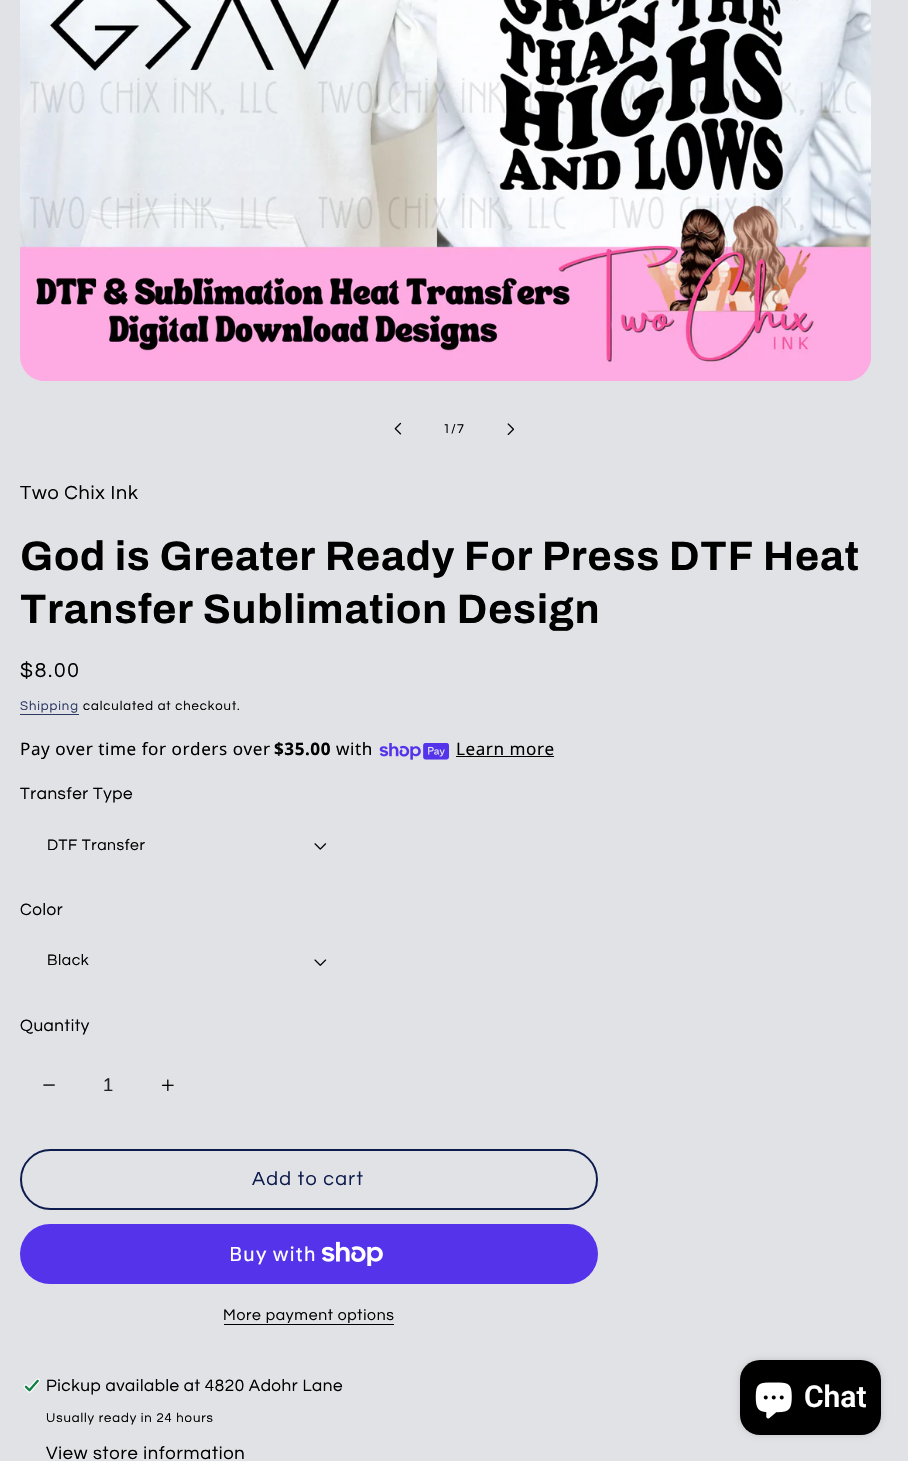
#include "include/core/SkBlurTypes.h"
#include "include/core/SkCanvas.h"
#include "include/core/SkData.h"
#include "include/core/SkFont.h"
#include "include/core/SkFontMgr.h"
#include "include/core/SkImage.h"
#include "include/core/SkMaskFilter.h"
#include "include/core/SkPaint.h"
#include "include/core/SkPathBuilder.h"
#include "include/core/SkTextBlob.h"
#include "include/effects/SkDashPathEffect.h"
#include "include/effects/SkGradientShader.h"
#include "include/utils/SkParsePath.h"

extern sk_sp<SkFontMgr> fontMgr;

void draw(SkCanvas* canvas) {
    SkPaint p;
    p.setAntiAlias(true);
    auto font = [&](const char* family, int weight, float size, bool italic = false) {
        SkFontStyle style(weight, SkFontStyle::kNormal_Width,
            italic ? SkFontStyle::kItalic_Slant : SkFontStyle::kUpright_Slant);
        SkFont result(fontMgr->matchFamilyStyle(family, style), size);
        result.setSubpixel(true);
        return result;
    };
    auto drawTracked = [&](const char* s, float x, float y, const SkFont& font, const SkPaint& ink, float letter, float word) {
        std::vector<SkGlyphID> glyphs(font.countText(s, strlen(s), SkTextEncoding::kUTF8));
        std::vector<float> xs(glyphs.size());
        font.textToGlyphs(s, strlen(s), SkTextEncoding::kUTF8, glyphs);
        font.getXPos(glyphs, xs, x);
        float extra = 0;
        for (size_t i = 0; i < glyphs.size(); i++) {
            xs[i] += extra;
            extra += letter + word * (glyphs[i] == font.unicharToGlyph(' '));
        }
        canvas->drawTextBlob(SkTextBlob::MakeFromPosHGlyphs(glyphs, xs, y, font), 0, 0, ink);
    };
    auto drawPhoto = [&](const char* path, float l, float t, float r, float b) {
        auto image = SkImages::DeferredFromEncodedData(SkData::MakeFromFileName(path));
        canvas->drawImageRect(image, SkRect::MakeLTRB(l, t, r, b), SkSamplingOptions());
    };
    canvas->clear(0xFFE1E2E6);
    drawPhoto("media/1.png", 20, 0, 871, 381);
    drawPhoto("media/2.png", 394, 422, 402, 435);
    auto font1 = font("Questrial", 400, 13.1f);
    p.setColor(0xFF000000);
    drawTracked("1/7", 443, 433, font1, p, 0.9f, 0);
    drawPhoto("media/3.png", 507, 423, 515, 435);
    auto font2 = font("Questrial", 400, 19.75f);
    drawTracked("Two Chix Ink", 20, 499, font2, p, 0.75f, 0);
    auto font3 = font("Archivo", 700, 41.25f);
    drawTracked("God is Greater Ready For Press DTF Heat", 20, 570, font3, p, 0.85f, 0);
    drawTracked("Transfer Sublimation Design", 20, 623, font3, p, 0.85f, 0);
    auto font4 = font("Questrial", 400, 21);
    drawTracked("$8.00", 20, 677, font4, p, 1.75f, 0);
    p.setColor(0xFF2E3964);
    drawTracked("Shipping", 20, 710, font1, p, 0.9f, 0);
    canvas->drawRect(SkRect::MakeLTRB(20, 714, 79, 715), p);
    p.setColor(0xFF000000);
    drawTracked("calculated at checkout.", 83, 710, font1, p, 0.9f, 0);
    auto font5 = font("Noto Sans", 400, 17.1f);
    drawTracked("Pay over time for orders over", 20, 755, font5, p, 0.55f, 0);
    auto font6 = font("Noto Sans", 700, 17.1f);
    drawTracked("$35.00", 274, 755, font6, p, 0.55f, 0);
    drawTracked("with", 336, 755, font5, p, 0.55f, 0);
    drawPhoto("media/4.png", 379, 743, 449, 760);
    drawTracked("Learn more", 456, 755, font5, p, 0.55f, 0);
    canvas->drawRect(SkRect::MakeLTRB(456, 756, 554, 757), p);
    auto font7 = font("Questrial", 400, 17.1f);
    drawTracked("Transfer Type", 20, 799, font7, p, 0.55f, 0);
    auto font8 = font("Questrial", 400, 15.75f);
    drawTracked("DTF Transfer", 47, 850, font8, p, 0.55f, 0);
    drawPhoto("media/5.png", 314, 843, 327, 850);
    drawTracked("Color", 20, 915, font7, p, 0.55f, 0);
    drawTracked("Black", 47, 965, font8, p, 0.55f, 0);
    drawPhoto("media/6.png", 314, 959, 327, 966);
    drawTracked("Quantity", 20, 1031, font7, p, 0.55f, 0);
    drawPhoto("media/7.png", 43, 1084, 55, 1086);
    auto font9 = font("Liberation Sans", 400, 18.4f);
    p.setColor(0xFF222223);
    canvas->drawString("1", 103, 1091, font9, p);
    drawPhoto("media/8.png", 161, 1079, 174, 1091);
    p.setStyle(SkPaint::kStroke_Style);
    p.setStrokeWidth(2);
    p.setColor(0xFF0E1B4D);
    canvas->drawRoundRect(SkRect::MakeLTRB(21, 1150, 597, 1209), 29.5f, 29.5f, p);
    p.setStyle(SkPaint::kFill_Style);
    drawTracked("Add to cart", 252, 1185, font2, p, 1.25f, 0);
    p.setColor(0xFF5433EB);
    canvas->drawRoundRect(SkRect::MakeLTRB(20, 1224, 598, 1284), 30, 30, p);
    auto font10 = font("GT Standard", 400, 20);
    p.setColor(0xFFFFFFFF);
    drawTracked("Buy with", 229, 1261, font10, p, 0.75f, 0);
    drawPhoto("media/9.png", 321, 1241, 383, 1266);
    p.setColor(0xFF000000);
    drawTracked("More payment options", 223, 1320, font8, p, 0.7f, 0);
    canvas->drawRect(SkRect::MakeLTRB(224, 1324, 394, 1325), p);
    drawPhoto("media/10.png", 23, 1378, 40, 1393);
    drawTracked("Pickup available at 4820 Adohr Lane", 46, 1391, font7, p, 0.55f, 0);
    drawTracked("Usually ready in 24 hours", 46, 1422, font1, p, 0.9f, 0);
    auto font11 = font("Questrial", 400, 18.4f);
    drawTracked("View store information", 46, 1459, font11, p, 0.75f, 0);
    p.setColor(0x26000000);
    p.setMaskFilter(SkMaskFilter::MakeBlur(kNormal_SkBlurStyle, 3));
    canvas->drawRoundRect(SkRect::MakeLTRB(740, 1360, 881, 1435), 20, 20, p);
    p.setMaskFilter(nullptr);
    p.setColor(0xFF000000);
    canvas->drawRoundRect(SkRect::MakeLTRB(740, 1360, 881, 1435), 20, 20, p);
    drawPhoto("media/11.png", 755, 1382, 792, 1419);
    auto font12 = font("Roboto", 600, 30);
    p.setColor(0xFFFFFFFF);
    canvas->drawString("Chat", 804, 1407, font12, p);
}
